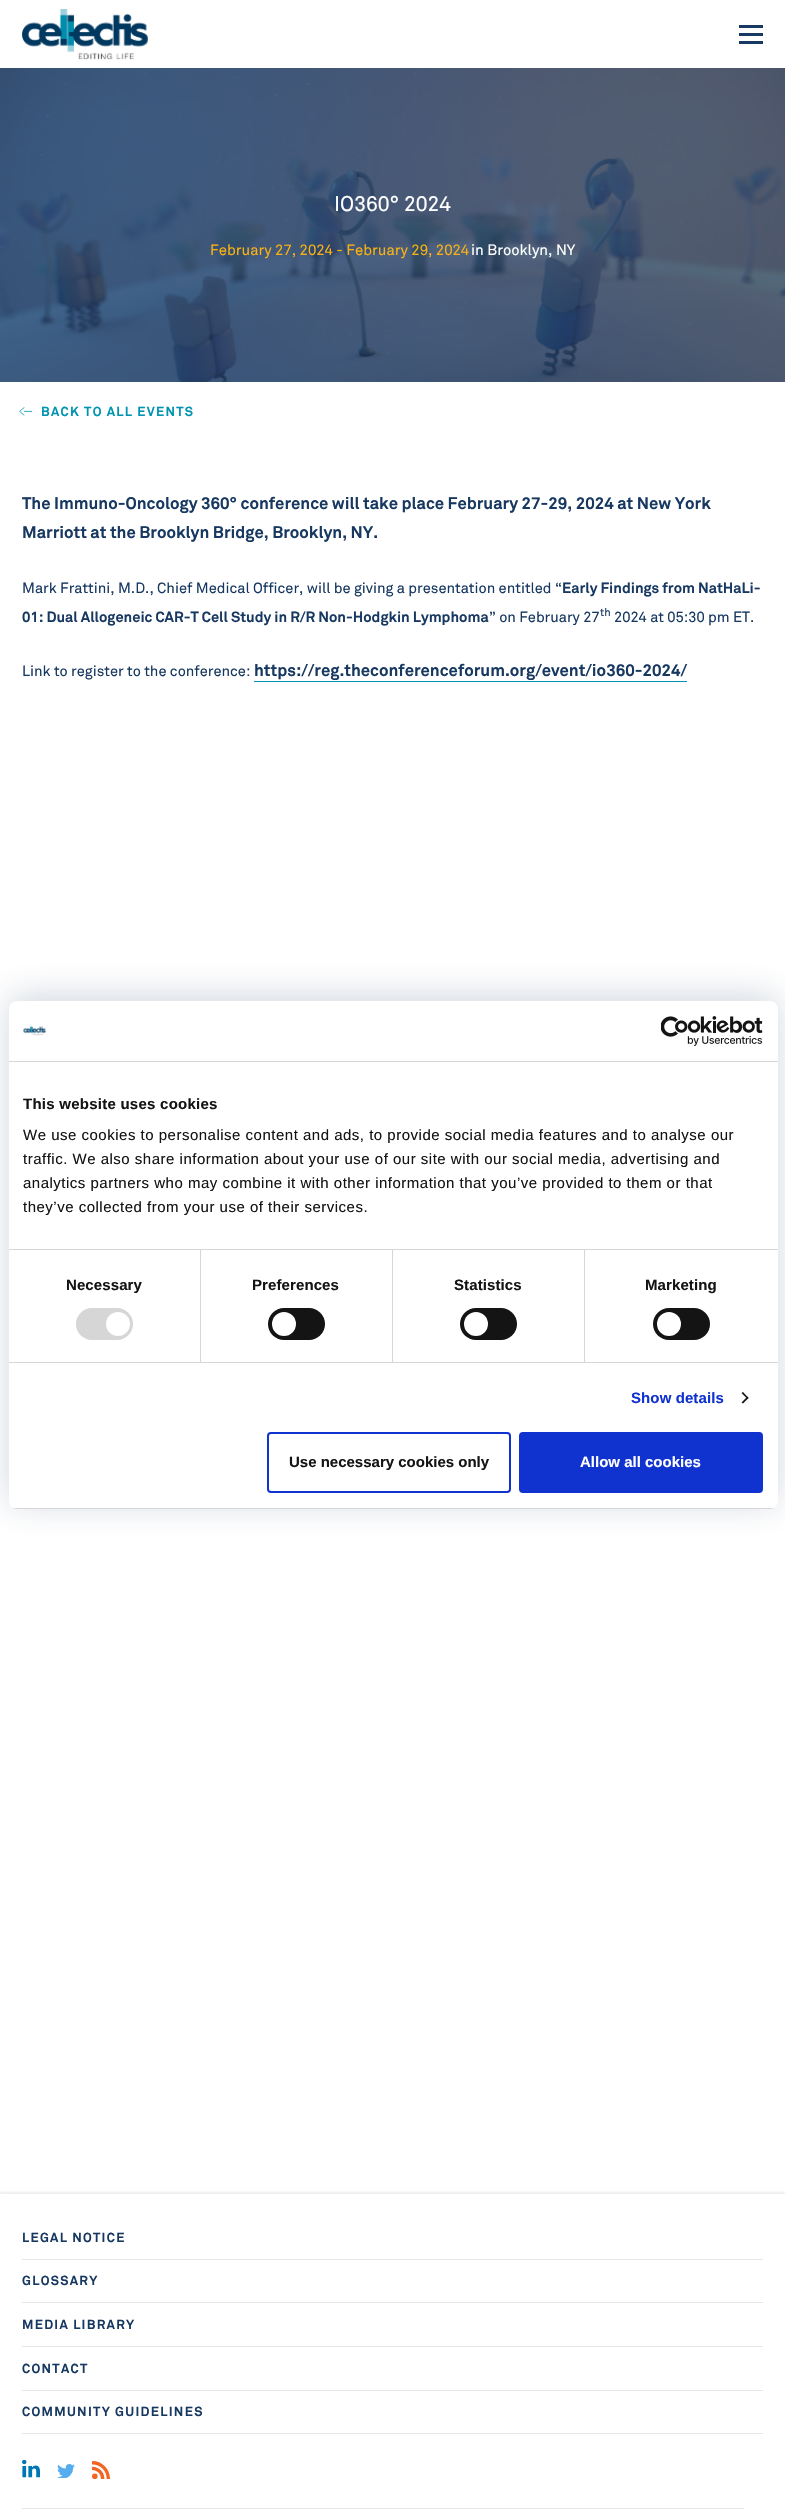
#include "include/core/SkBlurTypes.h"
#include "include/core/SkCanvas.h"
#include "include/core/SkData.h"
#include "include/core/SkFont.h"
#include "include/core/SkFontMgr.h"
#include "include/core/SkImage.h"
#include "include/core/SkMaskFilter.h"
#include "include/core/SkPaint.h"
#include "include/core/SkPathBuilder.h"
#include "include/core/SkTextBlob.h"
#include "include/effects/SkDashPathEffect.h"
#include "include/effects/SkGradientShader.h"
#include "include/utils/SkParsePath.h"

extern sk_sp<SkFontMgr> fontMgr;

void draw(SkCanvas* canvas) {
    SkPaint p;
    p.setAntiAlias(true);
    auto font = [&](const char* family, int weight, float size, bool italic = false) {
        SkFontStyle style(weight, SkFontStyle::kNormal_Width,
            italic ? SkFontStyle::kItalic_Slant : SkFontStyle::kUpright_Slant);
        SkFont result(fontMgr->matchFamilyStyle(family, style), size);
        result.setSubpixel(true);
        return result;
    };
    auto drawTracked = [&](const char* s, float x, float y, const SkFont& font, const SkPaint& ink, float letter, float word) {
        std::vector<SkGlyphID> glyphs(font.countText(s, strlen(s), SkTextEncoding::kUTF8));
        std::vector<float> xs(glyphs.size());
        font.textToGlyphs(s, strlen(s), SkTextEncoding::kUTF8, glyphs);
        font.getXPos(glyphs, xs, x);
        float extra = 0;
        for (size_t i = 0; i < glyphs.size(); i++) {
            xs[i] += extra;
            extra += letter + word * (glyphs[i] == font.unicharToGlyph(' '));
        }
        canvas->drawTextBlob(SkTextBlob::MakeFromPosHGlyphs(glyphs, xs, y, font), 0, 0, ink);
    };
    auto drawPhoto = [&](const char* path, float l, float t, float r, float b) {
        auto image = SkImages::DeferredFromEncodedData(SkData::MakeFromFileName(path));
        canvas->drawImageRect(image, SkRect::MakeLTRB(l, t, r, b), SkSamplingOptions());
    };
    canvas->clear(0xFFFFFFFF);
    drawPhoto("media/1.png", 22, 9, 148, 60);
    {
        const struct { float l, t, r, b; SkColor color; } items[] = {
            {739, 33, 763, 36, 0xFF173860},
            {739, 25, 763, 28, 0xFF173860},
            {739, 41, 763, 44, 0xFF173860},
            {0, 68, 785, 382, 0xFF173860},
        };
        for (auto [l, t, r, b, color] : items) {
            p.setColor(color);
            canvas->drawRect(SkRect::MakeLTRB(l, t, r, b), p);
        }
    }
    drawPhoto("media/2.png", 0, 68, 785, 382);
    auto font1 = font("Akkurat", 400, 21);
    p.setColor(0xFFFFFFFF);
    canvas->drawString("IO360° 2024", 334, 211, font1, p);
    auto font2 = font("Akkurat", 400, 14.9f);
    p.setColor(0xFFF9B113);
    canvas->drawString("February 27, 2024 ‐ February 29, 2024", 210, 255, font2, p);
    p.setColor(0xFFFFFFFF);
    canvas->drawString("in Brooklyn, NY", 471, 255, font2, p);
    drawPhoto("media/3.png", 19, 407, 32, 416);
    auto font3 = font("Akkurat", 700, 13);
    p.setColor(0xFF0094B2);
    drawTracked("BACK TO ALL EVENTS", 41, 416, font3, p, 1.3f, 0);
    auto font4 = font("Akkurat", 700, 16.7f);
    p.setColor(0xFF173860);
    canvas->drawString("The Immuno-Oncology 360° conference will take place February 27-29, 2024 at New York", 22, 509, font4, p);
    canvas->drawString("Marriott at the Brooklyn Bridge, Brooklyn, NY.", 22, 538, font4, p);
    auto font5 = font("Akkurat", 400, 14.65f);
    canvas->drawString("Mark Frattini, M.D., Chief Medical Officer, will be giving a presentation entitled “", 22, 593, font5, p);
    auto font6 = font("Akkurat", 700, 14.65f);
    canvas->drawString("Early Findings from NatHaLi-", 562, 593, font6, p);
    canvas->drawString("01: Dual Allogeneic CAR-T Cell Study in R/R Non-Hodgkin Lymphoma", 22, 622, font6, p);
    canvas->drawString("” on February 27", 489, 622, font5, p);
    auto font7 = font("Akkurat", 400, 11);
    canvas->drawString("th", 600, 616, font7, p);
    canvas->drawString("2024 at 05:30 pm ET.", 614, 622, font5, p);
    canvas->drawString("Link to register to the conference:", 22, 676, font5, p);
    canvas->drawString("https://reg.theconferenceforum.org/event/io360-2024/", 254, 676, font4, p);
    p.setColor(0xFF0094B2);
    canvas->drawRect(SkRect::MakeLTRB(254, 681, 687, 682), p);
    canvas->save();
    canvas->clipRect(SkRect::MakeLTRB(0, 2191, 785, 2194));
    p.setColor(0x12000000);
    p.setMaskFilter(SkMaskFilter::MakeBlur(kNormal_SkBlurStyle, 1));
    canvas->drawRect(SkRect::MakeLTRB(0, 2192, 785, 2507), p);
    p.setMaskFilter(nullptr);
    canvas->restore();
    p.setColor(0xFFE3E7EC);
    canvas->drawRect(SkRect::MakeLTRB(22, 2259, 763, 2260), p);
    p.setColor(0xFF173860);
    drawTracked("LEGAL NOTICE", 22, 2242, font3, p, 1.3f, 0);
    p.setColor(0xFFE3E7EC);
    canvas->drawRect(SkRect::MakeLTRB(22, 2302, 763, 2303), p);
    p.setColor(0xFF173860);
    drawTracked("GLOSSARY", 22, 2285, font3, p, 1.3f, 0);
    p.setColor(0xFFE3E7EC);
    canvas->drawRect(SkRect::MakeLTRB(22, 2346, 763, 2347), p);
    p.setColor(0xFF173860);
    drawTracked("MEDIA LIBRARY", 22, 2329, font3, p, 1.3f, 0);
    p.setColor(0xFFE3E7EC);
    canvas->drawRect(SkRect::MakeLTRB(22, 2390, 763, 2391), p);
    p.setColor(0xFF173860);
    drawTracked("CONTACT", 22, 2373, font3, p, 1.3f, 0);
    p.setColor(0xFFE3E7EC);
    canvas->drawRect(SkRect::MakeLTRB(22, 2433, 763, 2434), p);
    p.setColor(0xFF173860);
    drawTracked("COMMUNITY GUIDELINES", 22, 2416, font3, p, 1.3f, 0);
    p.setColor(0xFFE3E7EC);
    canvas->drawRect(SkRect::MakeLTRB(22, 2508, 744, 2509), p);
    drawPhoto("media/4.png", 22, 2460, 40, 2478);
    drawPhoto("media/5.png", 57, 2464, 75, 2478);
    drawPhoto("media/6.png", 92, 2461, 110, 2479);
    p.setColor(0x33173860);
    p.setMaskFilter(SkMaskFilter::MakeBlur(kNormal_SkBlurStyle, 17.5f));
    canvas->drawRoundRect(SkRect::MakeLTRB(9, 996, 778, 1504), 8, 8, p);
    p.setMaskFilter(nullptr);
    p.setColor(0xFFFFFFFF);
    canvas->drawRoundRect(SkRect::MakeLTRB(9, 1001, 778, 1509), 8, 8, p);
    p.setColor(0xFFD6D6D6);
    canvas->drawRect(SkRect::MakeLTRB(9, 1061, 778, 1062), p);
    drawPhoto("media/7.png", 23, 1025, 46, 1036);
    drawPhoto("media/8.png", 661, 1016, 763, 1046);
    canvas->drawRect(SkRect::MakeLTRB(9, 1249, 778, 1250), p);
    auto font8 = font("Liberation Sans", 700, 15);
    p.setColor(0xFF141414);
    drawTracked("This website uses cookies", 23, 1109, font8, p, 0.25f, 0);
    auto font9 = font("Liberation Sans", 400, 15);
    {
        const struct { const char* s; float x, y; } items[] = {
            {"We use cookies to personalise content and ads, to provide social media features and to analyse our", 23, 1140},
            {"traffic. We also share information about your use of our site with our social media, advertising and", 23, 1164},
            {"analytics partners who may combine it with other information that you’ve provided to them or that", 23, 1188},
            {"they’ve collected from your use of their services.", 23, 1212},
        };
        for (auto [s, x, y] : items) {
            drawTracked(s, x, y, font9, p, 0.5f, 0);
        }
    }
    p.setColor(0xFFD6D6D6);
    canvas->drawRect(SkRect::MakeLTRB(9, 1362, 778, 1363), p);
    canvas->drawRect(SkRect::MakeLTRB(200, 1250, 201, 1362), p);
    p.setColor(0xFF141414);
    drawTracked("Necessary", 66, 1290, font8, p, 0.1f, 0);
    p.setColor(0xFFD6D6D6);
    canvas->drawRoundRect(SkRect::MakeLTRB(76, 1308, 133, 1340), 16, 16, p);
    p.setColor(0xFFFFFFFF);
    canvas->drawCircle(118, 1324, 12, p);
    p.setColor(0xFFD6D6D6);
    canvas->drawRect(SkRect::MakeLTRB(392, 1250, 393, 1362), p);
    p.setColor(0xFF141414);
    drawTracked("Preferences", 252, 1290, font8, p, 0.1f, 0);
    canvas->drawRoundRect(SkRect::MakeLTRB(268, 1308, 325, 1340), 16, 16, p);
    p.setColor(0xFFFFFFFF);
    canvas->drawCircle(284, 1324, 12, p);
    p.setColor(0xFFD6D6D6);
    canvas->drawRect(SkRect::MakeLTRB(584, 1250, 585, 1362), p);
    p.setColor(0xFF141414);
    drawTracked("Statistics", 454, 1290, font8, p, 0.1f, 0);
    canvas->drawRoundRect(SkRect::MakeLTRB(460, 1308, 517, 1340), 16, 16, p);
    p.setColor(0xFFFFFFFF);
    canvas->drawCircle(476, 1324, 12, p);
    p.setColor(0xFF141414);
    drawTracked("Marketing", 645, 1290, font8, p, 0.1f, 0);
    canvas->drawRoundRect(SkRect::MakeLTRB(653, 1308, 710, 1340), 16, 16, p);
    p.setColor(0xFFFFFFFF);
    canvas->drawCircle(669, 1324, 12, p);
    p.setColor(0xFF1032CF);
    drawTracked("Show details", 631, 1403, font8, p, 0.1f, 0);
    p.setColor(0xFF141414);
    canvas->drawPath(SkPathBuilder().moveTo(743, 1392).lineTo(748.5f, 1398).lineTo(747.5f, 1399).lineTo(741.5f, 1393).close().detach(), p);
    canvas->drawPath(SkPathBuilder().moveTo(747.5f, 1396.5f).lineTo(748.5f, 1398).lineTo(743, 1403.5f).lineTo(741.5f, 1402.5f).close().detach(), p);
    canvas->save();
    canvas->clipPath(SkPathBuilder().moveTo(17, 1001).lineTo(770, 1001).cubicTo(774.5f, 1001, 778, 1004.5f, 778, 1009).lineTo(778, 1501).cubicTo(778, 1505.5f, 774.5f, 1509, 770, 1509).lineTo(17, 1509).cubicTo(12.5f, 1509, 9, 1505.5f, 9, 1501).lineTo(9, 1009).cubicTo(9, 1004.5f, 12.5f, 1001, 17, 1001).close().detach(), true);
    p.setColor(0xFFD6D6D6);
    canvas->drawRect(SkRect::MakeLTRB(9, 1508, 778, 1509), p);
    canvas->restore();
    p.setStyle(SkPaint::kStroke_Style);
    p.setStrokeWidth(2);
    p.setColor(0xFF1032CF);
    canvas->drawRoundRect(SkRect::MakeLTRB(268, 1433, 510, 1492), 3, 3, p);
    p.setStyle(SkPaint::kFill_Style);
    p.setColor(0xFF141414);
    canvas->drawString("Use necessary cookies only", 289, 1467, font8, p);
    p.setColor(0xFF1032CF);
    canvas->drawRoundRect(SkRect::MakeLTRB(520, 1433, 762, 1492), 3, 3, p);
    p.setStyle(SkPaint::kStroke_Style);
    canvas->drawRoundRect(SkRect::MakeLTRB(520, 1433, 762, 1492), 3, 3, p);
    p.setStyle(SkPaint::kFill_Style);
    p.setColor(0xFFFFFFFF);
    canvas->drawString("Allow all cookies", 580, 1467, font8, p);
}
